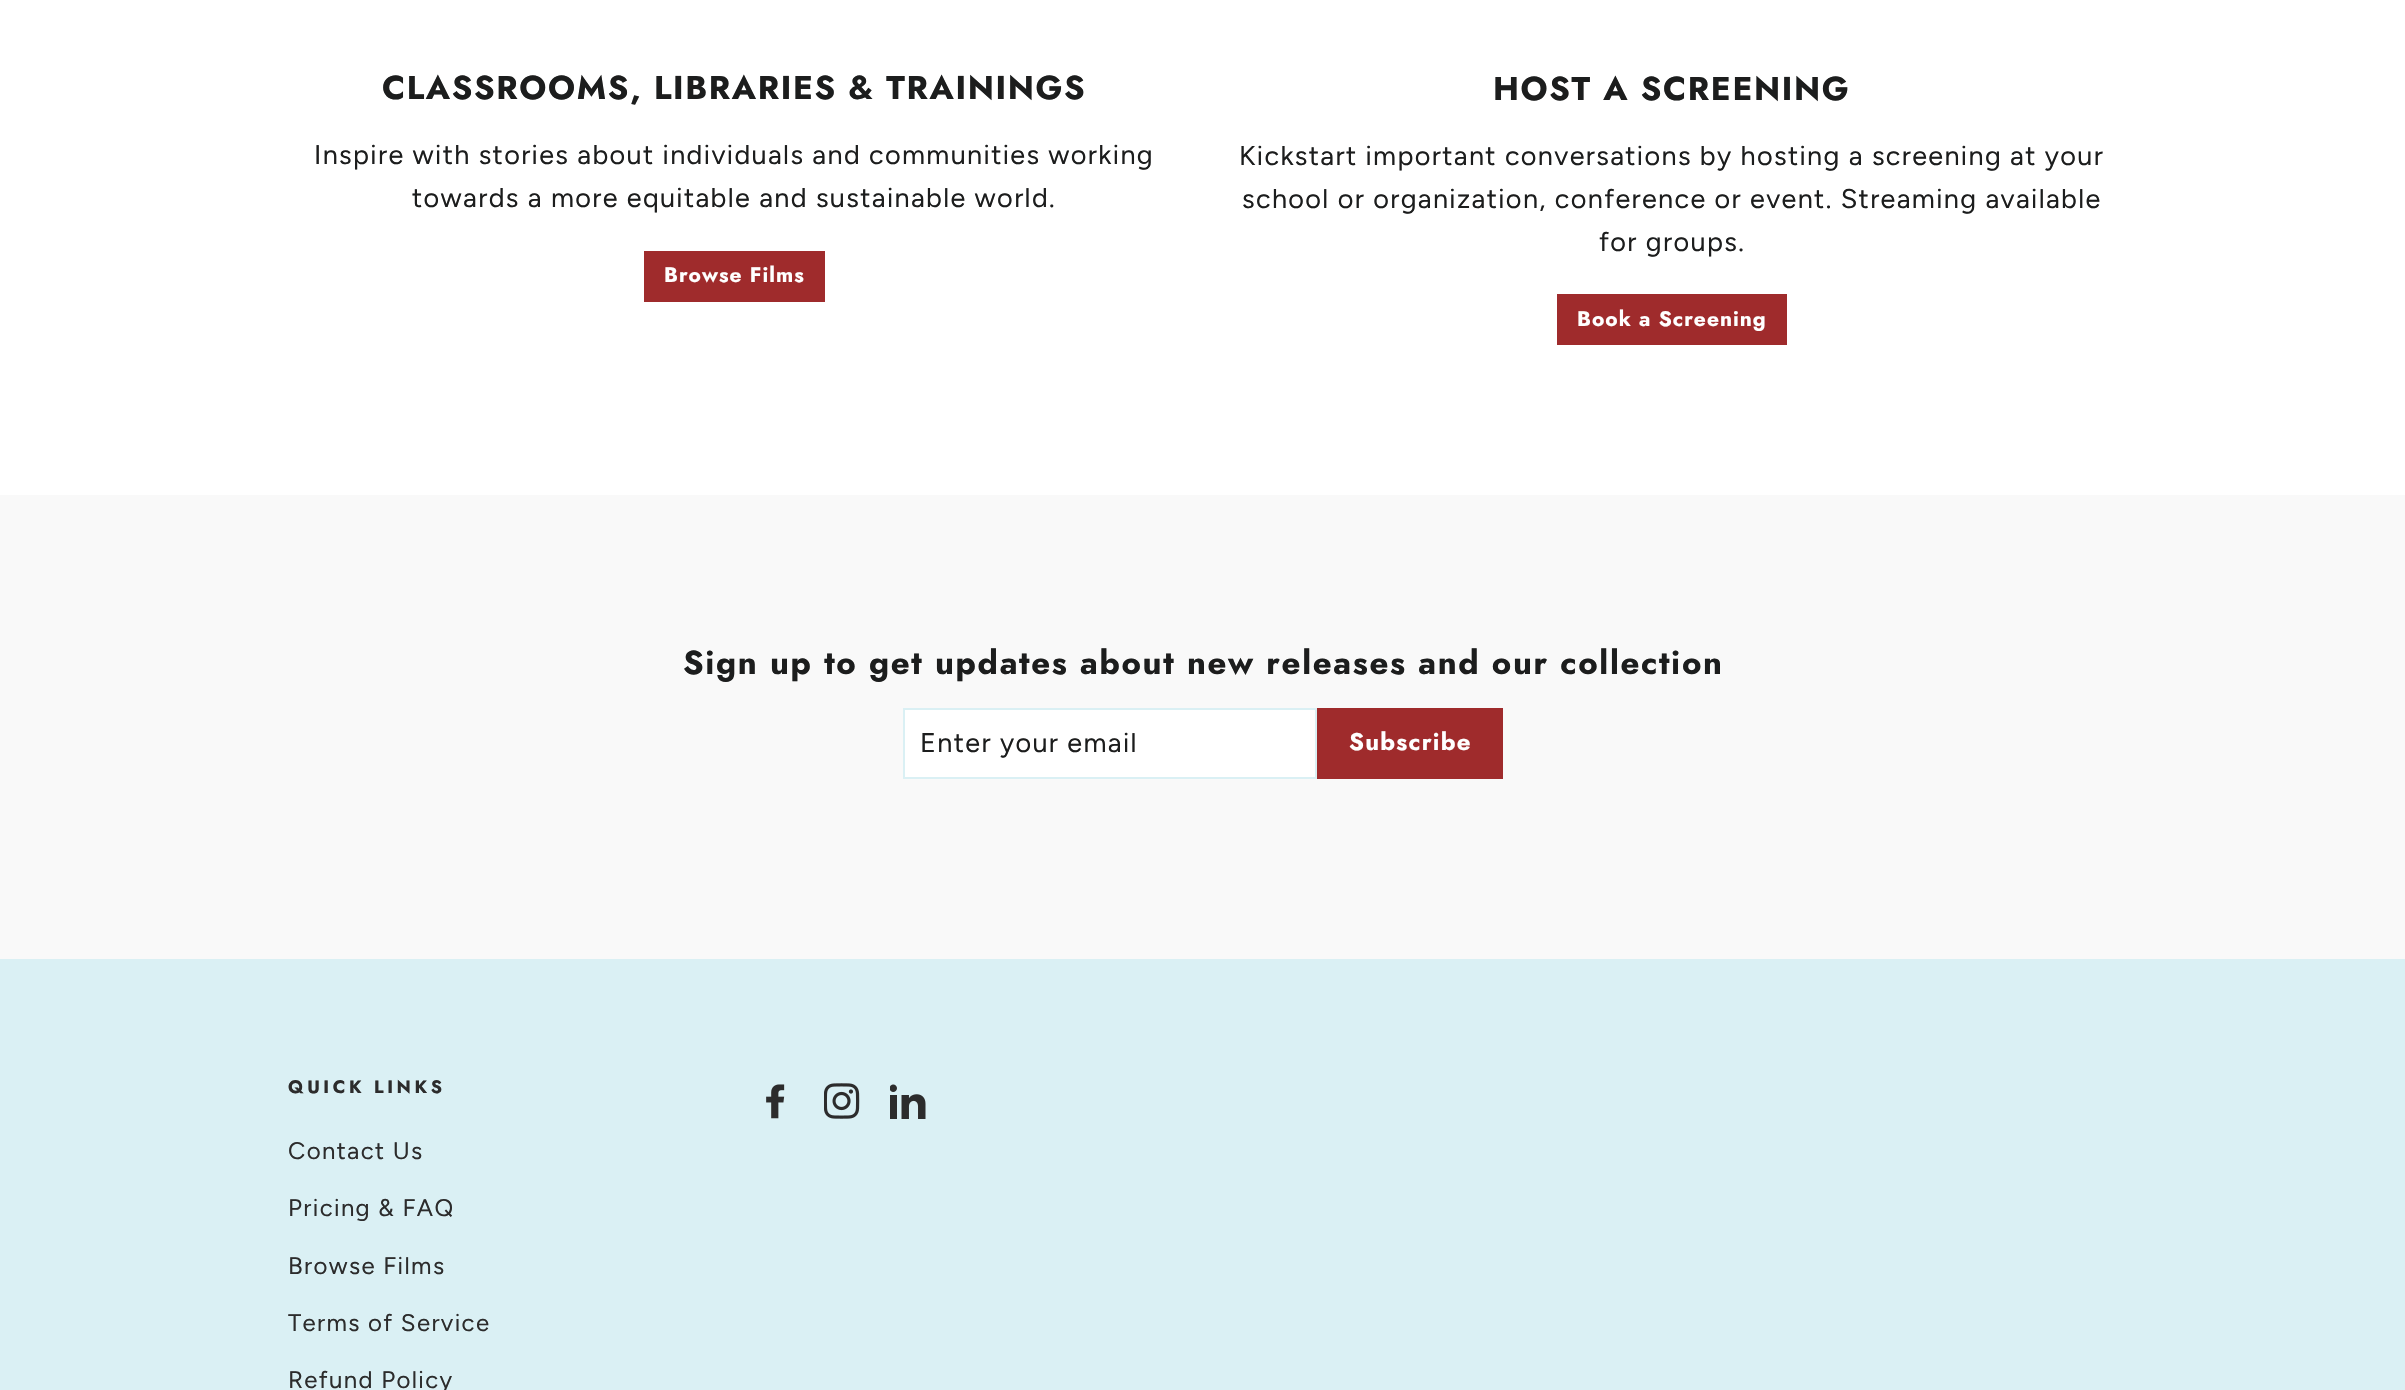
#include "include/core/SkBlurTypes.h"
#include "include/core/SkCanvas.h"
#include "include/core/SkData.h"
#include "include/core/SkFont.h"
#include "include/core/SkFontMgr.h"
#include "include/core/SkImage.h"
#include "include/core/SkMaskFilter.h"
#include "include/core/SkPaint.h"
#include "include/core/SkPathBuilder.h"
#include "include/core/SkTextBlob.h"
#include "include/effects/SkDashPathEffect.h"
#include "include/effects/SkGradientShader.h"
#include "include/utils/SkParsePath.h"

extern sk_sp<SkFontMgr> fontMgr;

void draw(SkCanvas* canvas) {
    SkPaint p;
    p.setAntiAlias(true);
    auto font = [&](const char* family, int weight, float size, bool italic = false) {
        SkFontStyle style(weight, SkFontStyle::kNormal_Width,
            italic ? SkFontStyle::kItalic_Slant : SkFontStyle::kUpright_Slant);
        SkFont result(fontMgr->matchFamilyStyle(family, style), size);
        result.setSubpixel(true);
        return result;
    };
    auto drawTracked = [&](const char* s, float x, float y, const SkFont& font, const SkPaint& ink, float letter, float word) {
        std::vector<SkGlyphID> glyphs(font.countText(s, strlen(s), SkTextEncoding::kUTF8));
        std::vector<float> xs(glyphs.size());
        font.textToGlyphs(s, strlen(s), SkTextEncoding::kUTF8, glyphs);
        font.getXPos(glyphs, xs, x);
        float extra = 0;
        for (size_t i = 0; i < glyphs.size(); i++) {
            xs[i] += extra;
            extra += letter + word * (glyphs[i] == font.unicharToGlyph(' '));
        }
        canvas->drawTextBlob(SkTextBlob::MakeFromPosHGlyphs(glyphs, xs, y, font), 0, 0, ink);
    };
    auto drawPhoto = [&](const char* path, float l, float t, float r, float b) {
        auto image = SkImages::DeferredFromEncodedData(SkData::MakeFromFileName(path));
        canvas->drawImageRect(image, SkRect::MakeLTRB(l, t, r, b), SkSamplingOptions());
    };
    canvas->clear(0xFFFFFFFF);
    auto font1 = font("Jost", 700, 33);
    p.setColor(0xFF1C1D1D);
    drawTracked("CLASSROOMS, LIBRARIES & TRAININGS", 382, 99, font1, p, 1.65f, 0);
    auto font2 = font("Figtree", 400, 27);
    drawTracked("Inspire with stories about individuals and communities working", 314, 164, font2, p, 1.35f, 0);
    drawTracked("towards a more equitable and sustainable world.", 412, 207, font2, p, 1.35f, 0);
    p.setColor(0xFF9F2B2C);
    canvas->drawRect(SkRect::MakeLTRB(644, 251, 825, 302), p);
    auto font3 = font("Jost", 700, 21);
    p.setColor(0xFFFFFFFF);
    drawTracked("Browse Films", 664, 282, font3, p, 1, 0);
    p.setColor(0xFF1C1D1D);
    drawTracked("HOST A SCREENING", 1493, 100, font1, p, 1.65f, 0);
    {
        const struct { const char* s; float x, y; } items[] = {
            {"Kickstart important conversations by hosting a screening at your", 1239, 165},
            {"school or organization, conference or event. Streaming available", 1242, 208},
            {"for groups.", 1599, 251},
        };
        for (auto [s, x, y] : items) {
            drawTracked(s, x, y, font2, p, 1.35f, 0);
        }
    }
    p.setColor(0xFF9F2B2C);
    canvas->drawRect(SkRect::MakeLTRB(1557, 294, 1787, 345), p);
    p.setColor(0xFFFFFFFF);
    drawTracked("Book a Screening", 1577, 326, font3, p, 1, 0);
    p.setColor(0xFFF9F9F9);
    canvas->drawRect(SkRect::MakeLTRB(0, 495, 2405, 959), p);
    p.setColor(0xFF1C1D1D);
    drawTracked("Sign up to get updates about new releases and our collection", 683, 674, font1, p, 1.65f, 0);
    p.setColor(0xFFFFFFFF);
    canvas->drawRect(SkRect::MakeLTRB(904, 709, 1316, 778), p);
    p.setStyle(SkPaint::kStroke_Style);
    p.setStrokeWidth(2);
    p.setColor(0xFFDAF0F4);
    canvas->drawRect(SkRect::MakeLTRB(904, 709, 1316, 778), p);
    p.setStyle(SkPaint::kFill_Style);
    p.setColor(0xFF1C1D1D);
    drawTracked("Enter your email", 920, 752, font2, p, 1.35f, 0);
    p.setColor(0xFF9F2B2C);
    canvas->drawRect(SkRect::MakeLTRB(1317, 708, 1503, 779), p);
    auto font4 = font("Jost", 700, 24);
    p.setColor(0xFFFFFFFF);
    drawTracked("Subscribe", 1349, 750, font4, p, 1.25f, 0);
    p.setColor(0xFFDAF0F4);
    canvas->drawRect(SkRect::MakeLTRB(0, 959, 2405, 1390), p);
    auto font5 = font("Jost", 700, 18);
    p.setColor(0xFF2C2C2C);
    drawTracked("QUICK LINKS", 288, 1093, font5, p, 3.6f, 0);
    auto font6 = font("Figtree", 400, 24);
    {
        const struct { const char* s; float x, y; } items[] = {
            {"Contact Us", 288, 1159},
            {"Pricing & FAQ", 288, 1216},
            {"Browse Films", 288, 1274},
            {"Terms of Service", 288, 1331},
            {"Refund Policy", 288, 1388},
        };
        for (auto [s, x, y] : items) {
            drawTracked(s, x, y, font6, p, 1.35f, 0);
        }
    }
    drawPhoto("media/1.png", 766, 1084, 785, 1119);
    drawPhoto("media/2.png", 824, 1083, 860, 1119);
    drawPhoto("media/3.png", 890, 1084, 926, 1119);
}
